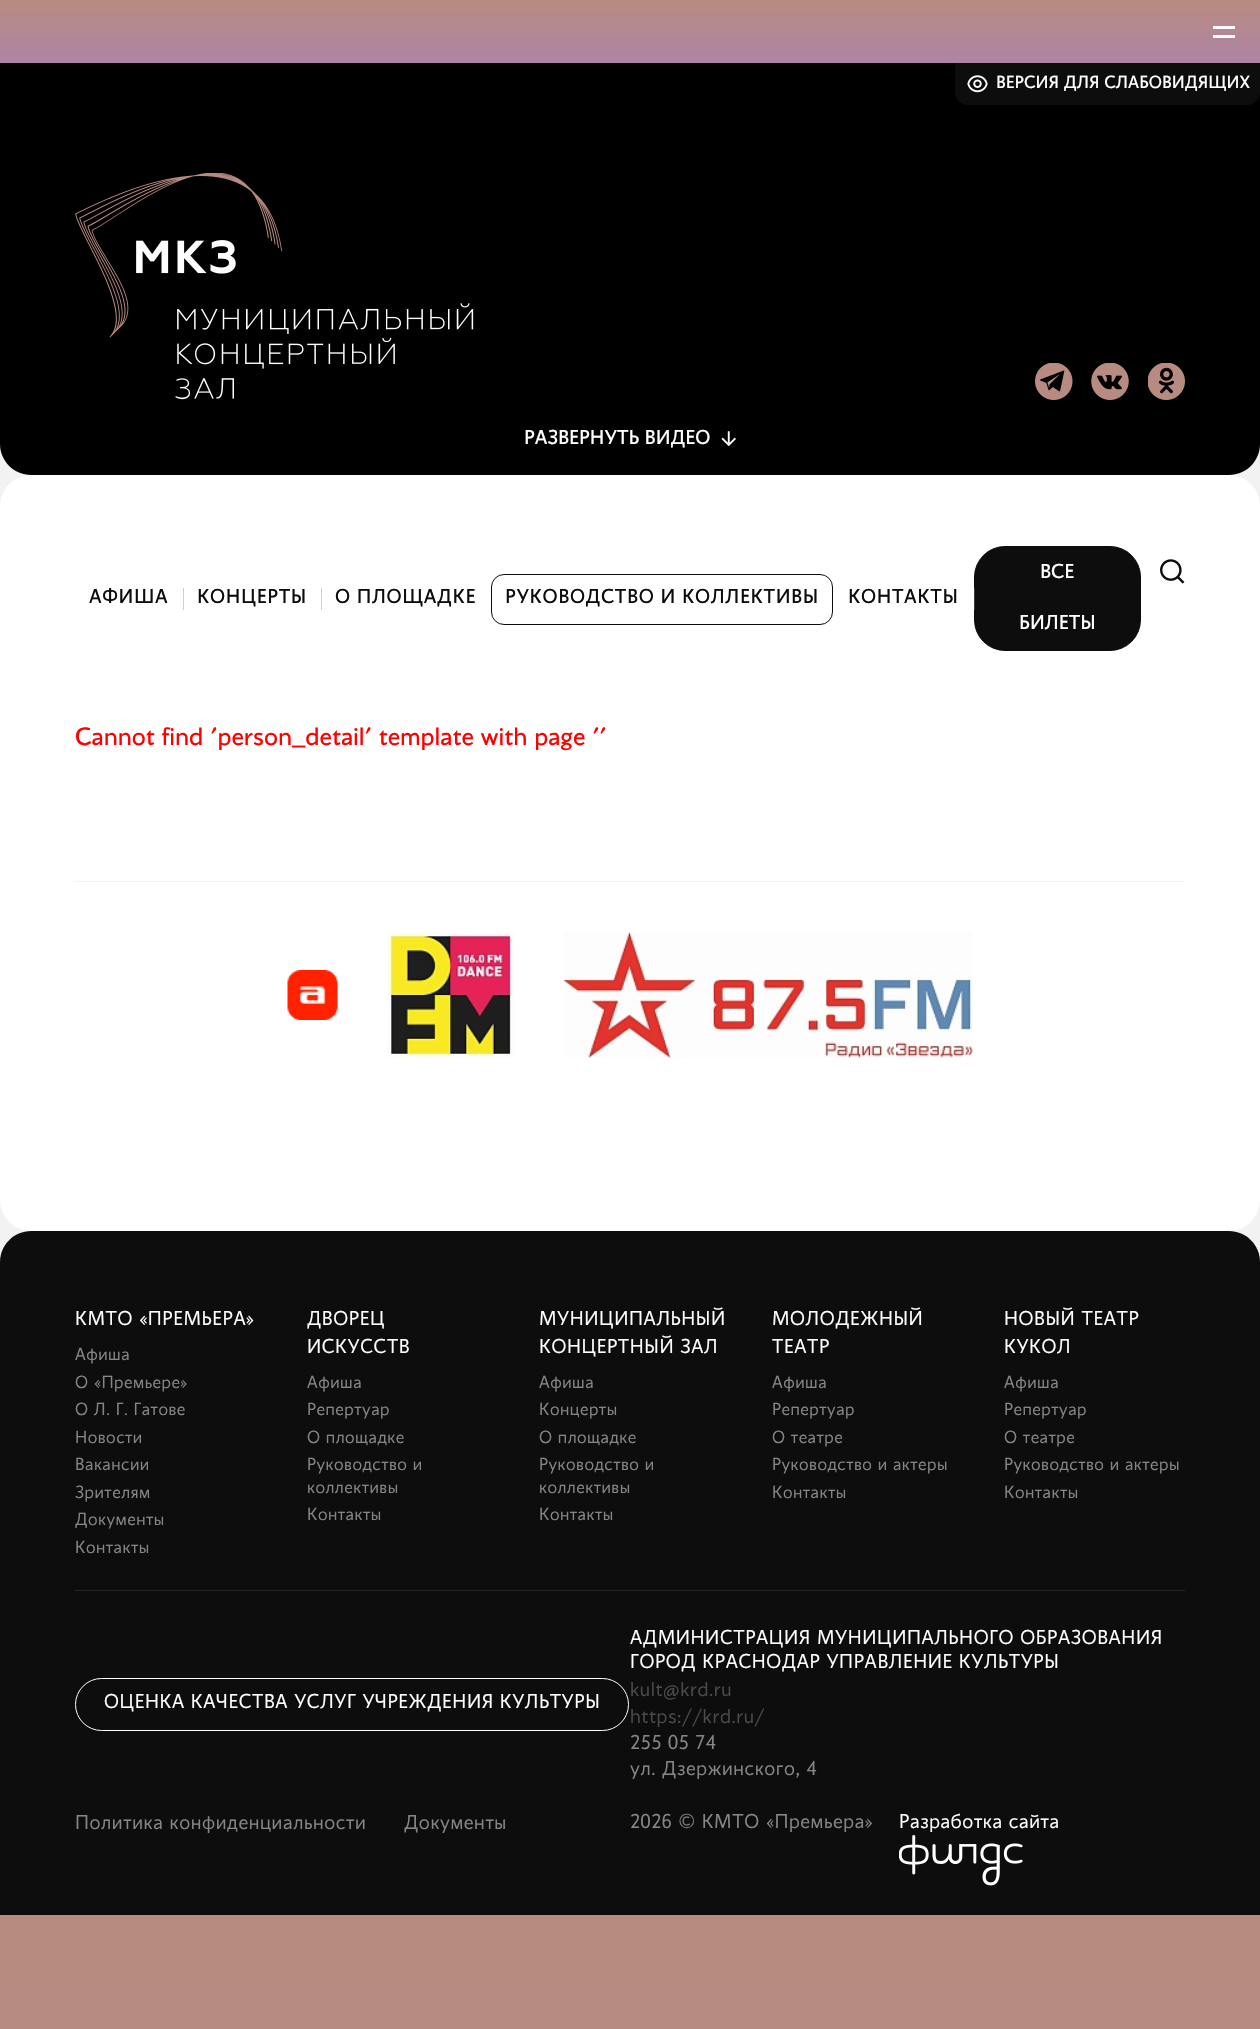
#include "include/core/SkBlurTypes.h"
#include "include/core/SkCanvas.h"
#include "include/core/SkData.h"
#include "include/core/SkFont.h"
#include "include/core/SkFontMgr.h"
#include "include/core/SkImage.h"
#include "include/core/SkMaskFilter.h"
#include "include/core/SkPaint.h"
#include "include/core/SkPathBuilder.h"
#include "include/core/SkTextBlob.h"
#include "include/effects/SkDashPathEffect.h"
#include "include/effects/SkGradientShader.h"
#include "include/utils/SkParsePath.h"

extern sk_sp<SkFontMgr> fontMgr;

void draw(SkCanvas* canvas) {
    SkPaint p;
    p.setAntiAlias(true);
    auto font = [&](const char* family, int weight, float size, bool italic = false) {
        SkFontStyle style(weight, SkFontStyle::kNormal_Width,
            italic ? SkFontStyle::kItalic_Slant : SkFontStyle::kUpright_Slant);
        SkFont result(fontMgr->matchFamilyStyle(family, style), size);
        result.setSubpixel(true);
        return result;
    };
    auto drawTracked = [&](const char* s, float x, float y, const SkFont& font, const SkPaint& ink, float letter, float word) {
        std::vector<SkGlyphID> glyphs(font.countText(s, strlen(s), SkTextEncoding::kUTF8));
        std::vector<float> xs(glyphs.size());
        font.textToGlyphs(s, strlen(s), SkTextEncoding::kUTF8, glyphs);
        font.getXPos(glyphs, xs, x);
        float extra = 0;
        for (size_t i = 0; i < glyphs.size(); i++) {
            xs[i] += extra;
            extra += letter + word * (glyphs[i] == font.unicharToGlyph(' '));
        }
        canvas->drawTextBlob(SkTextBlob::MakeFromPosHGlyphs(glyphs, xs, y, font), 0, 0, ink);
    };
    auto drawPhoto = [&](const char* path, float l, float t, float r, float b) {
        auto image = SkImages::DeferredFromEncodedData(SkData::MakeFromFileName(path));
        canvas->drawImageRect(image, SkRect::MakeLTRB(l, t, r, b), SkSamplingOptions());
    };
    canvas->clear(0xFFFFFFFF);
    {
        const SkColor colors[] = {0xFFB88B80, 0xFFAF83A6};
        const float stops[] = {0, 1};
        const SkPoint ends[] = {{630, 1915}, {630, 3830}};
        p.setShader(SkGradientShader::MakeLinear(ends, colors, stops, 2, SkTileMode::kClamp));
        p.setAlpha(255);
    }
    canvas->drawRect(SkRect::MakeLTRB(0, 1915, 1260, 2029), p);
    {
        const SkColor colors[] = {0xFFB88B80, 0xFFAF83A6};
        const float stops[] = {0, 1};
        const SkPoint ends[] = {{630, 0}, {630, 63}};
        p.setShader(SkGradientShader::MakeLinear(ends, colors, stops, 2, SkTileMode::kClamp));
        p.setAlpha(255);
    }
    canvas->drawRect(SkRect::MakeLTRB(0, 0, 1260, 63), p);
    p.setShader(nullptr);
    {
        const struct { float l, t, r, b; SkColor color; } items[] = {
            {1213, 26, 1235, 29, 0xFFFFFFFF},
            {1213, 35, 1235, 38, 0xFFFFFFFF},
            {0, 444, 1260, 1262, 0xFFF2F2F2},
        };
        for (auto [l, t, r, b, color] : items) {
            p.setColor(color);
            canvas->drawRect(SkRect::MakeLTRB(l, t, r, b), p);
        }
    }
    p.setColor(0xFF000000);
    canvas->drawPath(SkPathBuilder().moveTo(0, 63).lineTo(1260, 63).lineTo(1260, 444).cubicTo(1260, 461, 1246, 475, 1229, 475).lineTo(31, 475).cubicTo(14, 475, 0, 461, 0, 444).close().detach(), p);
    p.setColor(0xFF0D0D0D);
    canvas->drawPath(SkPathBuilder().moveTo(955, 63).lineTo(1260, 63).lineTo(1260, 92).cubicTo(1260, 99, 1254, 105, 1247, 105).lineTo(968, 105).cubicTo(961, 105, 955, 99, 955, 92).close().detach(), p);
    drawPhoto("media/1.png", 967, 75, 988, 93);
    auto font1 = font("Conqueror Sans", 400, 17.5f);
    p.setColor(0xFFFFFFFF);
    canvas->drawString("ВЕРСИЯ ДЛЯ СЛАБОВИДЯЩИХ", 996, 88, font1, p);
    drawPhoto("media/2.png", 75, 173, 474, 400);
    drawPhoto("media/3.png", 1035, 363, 1073, 400);
    drawPhoto("media/4.png", 1091, 363, 1129, 400);
    drawPhoto("media/5.png", 1148, 363, 1185, 400);
    auto font2 = font("Conqueror Sans", 400, 20);
    canvas->drawString("РАЗВЕРНУТЬ ВИДЕО", 524, 444, font2, p);
    drawPhoto("media/6.png", 721, 431, 736, 446);
    canvas->drawRoundRect(SkRect::MakeLTRB(0, 475, 1260, 1231), 31, 31, p);
    p.setColor(0xFF0D0D0D);
    drawTracked("АФИША", 89, 603, font2, p, 0.6f, 0);
    p.setColor(0xFFCFCFCF);
    canvas->drawRect(SkRect::MakeLTRB(183, 588, 184, 610), p);
    p.setColor(0xFF0D0D0D);
    drawTracked("КОНЦЕРТЫ", 197, 603, font2, p, 0.6f, 0);
    p.setColor(0xFFCFCFCF);
    canvas->drawRect(SkRect::MakeLTRB(321, 588, 322, 610), p);
    p.setColor(0xFF0D0D0D);
    drawTracked("О ПЛОЩАДКЕ", 335, 603, font2, p, 0.6f, 0);
    p.setStyle(SkPaint::kStroke_Style);
    p.setStrokeWidth(1);
    canvas->drawRoundRect(SkRect::MakeLTRB(491.5f, 574.5f, 832.5f, 624.5f), 12.5f, 12.5f, p);
    p.setStyle(SkPaint::kFill_Style);
    drawTracked("РУКОВОДСТВО И КОЛЛЕКТИВЫ", 505, 603, font2, p, 0.6f, 0);
    drawTracked("КОНТАКТЫ", 848, 603, font2, p, 0.6f, 0);
    canvas->drawRoundRect(SkRect::MakeLTRB(974.5f, 546.5f, 1140.5f, 650.5f), 30.5f, 30.5f, p);
    p.setStyle(SkPaint::kStroke_Style);
    canvas->drawRoundRect(SkRect::MakeLTRB(974.5f, 546.5f, 1140.5f, 650.5f), 30.5f, 30.5f, p);
    p.setStyle(SkPaint::kFill_Style);
    p.setColor(0xFF3D3D3D);
    canvas->drawRect(SkRect::MakeLTRB(974, 588, 975, 610), p);
    p.setColor(0xFFFFFFFF);
    canvas->drawString("ВСЕ", 1040, 578, font2, p);
    canvas->drawString("БИЛЕТЫ", 1019, 629, font2, p);
    drawPhoto("media/7.png", 1160, 559, 1185, 584);
    auto font3 = font("Conqueror Sans", 400, 25);
    p.setColor(0xFFFF0000);
    canvas->drawString("Cannot find 'person_detail' template with page ''", 75, 745, font3, p);
    p.setColor(0xFFF2F2F2);
    canvas->drawRect(SkRect::MakeLTRB(75, 881, 1185, 882), p);
    drawPhoto("media/8.png", 287, 970, 338, 1020);
    drawPhoto("media/9.png", 387, 932, 514, 1058);
    drawPhoto("media/10.png", 563, 932, 973, 1058);
    p.setColor(0xFF0D0D0D);
    canvas->drawPath(SkPathBuilder().moveTo(31, 1231).lineTo(1229, 1231).cubicTo(1246, 1231, 1260, 1245, 1260, 1262).lineTo(1260, 1915).lineTo(0, 1915).lineTo(0, 1262).cubicTo(0, 1245, 14, 1231, 31, 1231).close().detach(), p);
    auto font4 = font("Conqueror Sans", 300, 20);
    p.setColor(0xFFFFFFFF);
    drawTracked("КМТО «ПРЕМЬЕРА»", 75, 1325, font4, p, 0.6f, 0);
    auto font5 = font("Conqueror Sans", 300, 17.5f);
    p.setColor(0xFF868686);
    {
        const struct { const char* s; float x, y; } items[] = {
            {"Афиша", 75, 1360},
            {"О «Премьере»", 75, 1388},
            {"О Л. Г. Гатове", 75, 1415},
            {"Новости", 75, 1443},
            {"Вакансии", 75, 1470},
            {"Зрителям", 75, 1498},
            {"Документы", 75, 1525},
            {"Контакты", 75, 1553},
        };
        for (auto [s, x, y] : items) {
            drawTracked(s, x, y, font5, p, 0.5f, 0);
        }
    }
    p.setColor(0xFFFFFFFF);
    drawTracked("ДВОРЕЦ", 307, 1325, font4, p, 0.6f, 0);
    drawTracked("ИСКУССТВ", 307, 1353, font4, p, 0.6f, 0);
    p.setColor(0xFF868686);
    {
        const struct { const char* s; float x, y; } items[] = {
            {"Афиша", 307, 1388},
            {"Репертуар", 307, 1415},
            {"О площадке", 307, 1443},
            {"Руководство и", 307, 1470},
            {"коллективы", 307, 1493},
            {"Контакты", 307, 1520},
        };
        for (auto [s, x, y] : items) {
            drawTracked(s, x, y, font5, p, 0.5f, 0);
        }
    }
    p.setColor(0xFFFFFFFF);
    drawTracked("МУНИЦИПАЛЬНЫЙ", 539, 1325, font4, p, 0.6f, 0);
    drawTracked("КОНЦЕРТНЫЙ ЗАЛ", 539, 1353, font4, p, 0.6f, 0);
    p.setColor(0xFF868686);
    {
        const struct { const char* s; float x, y; } items[] = {
            {"Афиша", 539, 1388},
            {"Концерты", 539, 1415},
            {"О площадке", 539, 1443},
            {"Руководство и", 539, 1470},
            {"коллективы", 539, 1493},
            {"Контакты", 539, 1520},
        };
        for (auto [s, x, y] : items) {
            drawTracked(s, x, y, font5, p, 0.5f, 0);
        }
    }
    p.setColor(0xFFFFFFFF);
    drawTracked("МОЛОДЕЖНЫЙ", 772, 1325, font4, p, 0.6f, 0);
    drawTracked("ТЕАТР", 772, 1353, font4, p, 0.6f, 0);
    p.setColor(0xFF868686);
    {
        const struct { const char* s; float x, y; } items[] = {
            {"Афиша", 772, 1388},
            {"Репертуар", 772, 1415},
            {"О театре", 772, 1443},
            {"Руководство и актеры", 772, 1470},
            {"Контакты", 772, 1498},
        };
        for (auto [s, x, y] : items) {
            drawTracked(s, x, y, font5, p, 0.5f, 0);
        }
    }
    p.setColor(0xFFFFFFFF);
    drawTracked("НОВЫЙ ТЕАТР", 1004, 1325, font4, p, 0.6f, 0);
    drawTracked("КУКОЛ", 1004, 1353, font4, p, 0.6f, 0);
    p.setColor(0xFF868686);
    {
        const struct { const char* s; float x, y; } items[] = {
            {"Афиша", 1004, 1388},
            {"Репертуар", 1004, 1415},
            {"О театре", 1004, 1443},
            {"Руководство и актеры", 1004, 1470},
            {"Контакты", 1004, 1498},
        };
        for (auto [s, x, y] : items) {
            drawTracked(s, x, y, font5, p, 0.5f, 0);
        }
    }
    p.setColor(0xFF252525);
    canvas->drawRect(SkRect::MakeLTRB(75, 1590, 1185, 1591), p);
    p.setStyle(SkPaint::kStroke_Style);
    p.setColor(0xFFFFFFFF);
    canvas->drawRoundRect(SkRect::MakeLTRB(75.5f, 1678.5f, 628.5f, 1730.5f), 26, 26, p);
    p.setStyle(SkPaint::kFill_Style);
    {
        const struct { const char* s; float x, y; } items[] = {
            {"ОЦЕНКА КАЧЕСТВА УСЛУГ УЧРЕЖДЕНИЯ КУЛЬТУРЫ", 104, 1708},
            {"АДМИНИСТРАЦИЯ МУНИЦИПАЛЬНОГО ОБРАЗОВАНИЯ", 630, 1644},
            {"ГОРОД КРАСНОДАР УПРАВЛЕНИЕ КУЛЬТУРЫ", 630, 1668},
        };
        for (auto [s, x, y] : items) {
            drawTracked(s, x, y, font4, p, 0.6f, 0);
        }
    }
    p.setColor(0xFF4A4A4A);
    drawTracked("kult@krd.ru", 630, 1696, font4, p, 0.6f, 0);
    drawTracked("https://krd.ru/", 630, 1723, font4, p, 0.6f, 0);
    p.setColor(0xFF868686);
    {
        const struct { const char* s; float x, y; } items[] = {
            {"255 05 74", 630, 1749},
            {"ул. Дзержинского, 4", 630, 1775},
            {"Политика конфиденциальности", 75, 1829},
            {"Документы", 404, 1829},
            {"2026 © КМТО «Премьера»", 630, 1828},
        };
        for (auto [s, x, y] : items) {
            drawTracked(s, x, y, font4, p, 0.6f, 0);
        }
    }
    p.setColor(0xFFFFFFFF);
    drawTracked("Разработка сайта", 899, 1828, font4, p, 0.6f, 0);
    drawPhoto("media/11.png", 899, 1835, 1023, 1886);
}
